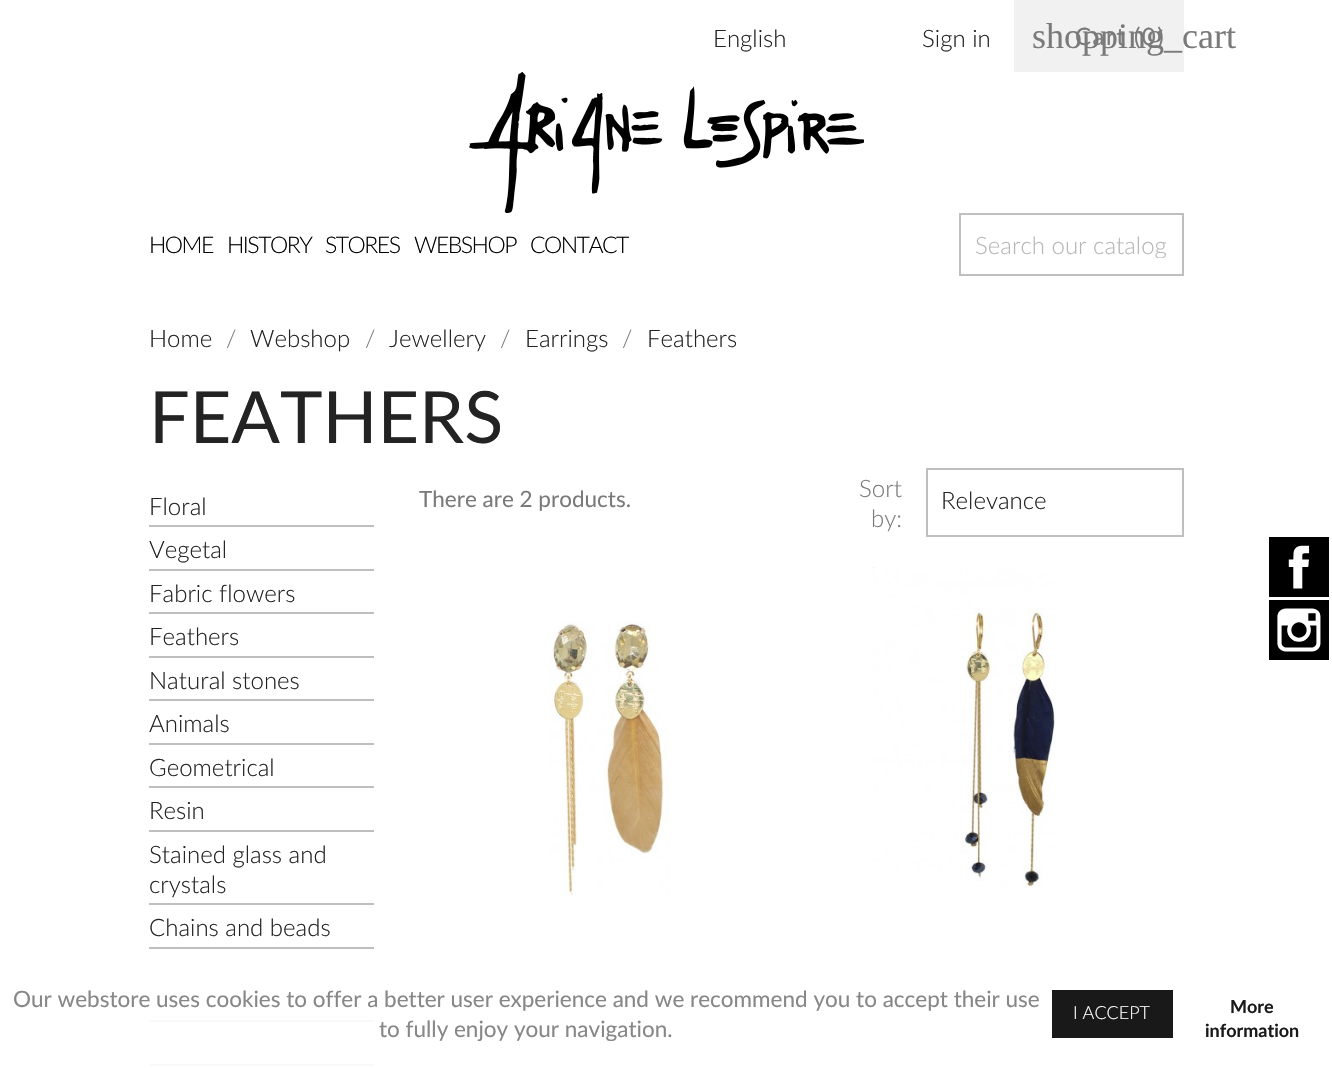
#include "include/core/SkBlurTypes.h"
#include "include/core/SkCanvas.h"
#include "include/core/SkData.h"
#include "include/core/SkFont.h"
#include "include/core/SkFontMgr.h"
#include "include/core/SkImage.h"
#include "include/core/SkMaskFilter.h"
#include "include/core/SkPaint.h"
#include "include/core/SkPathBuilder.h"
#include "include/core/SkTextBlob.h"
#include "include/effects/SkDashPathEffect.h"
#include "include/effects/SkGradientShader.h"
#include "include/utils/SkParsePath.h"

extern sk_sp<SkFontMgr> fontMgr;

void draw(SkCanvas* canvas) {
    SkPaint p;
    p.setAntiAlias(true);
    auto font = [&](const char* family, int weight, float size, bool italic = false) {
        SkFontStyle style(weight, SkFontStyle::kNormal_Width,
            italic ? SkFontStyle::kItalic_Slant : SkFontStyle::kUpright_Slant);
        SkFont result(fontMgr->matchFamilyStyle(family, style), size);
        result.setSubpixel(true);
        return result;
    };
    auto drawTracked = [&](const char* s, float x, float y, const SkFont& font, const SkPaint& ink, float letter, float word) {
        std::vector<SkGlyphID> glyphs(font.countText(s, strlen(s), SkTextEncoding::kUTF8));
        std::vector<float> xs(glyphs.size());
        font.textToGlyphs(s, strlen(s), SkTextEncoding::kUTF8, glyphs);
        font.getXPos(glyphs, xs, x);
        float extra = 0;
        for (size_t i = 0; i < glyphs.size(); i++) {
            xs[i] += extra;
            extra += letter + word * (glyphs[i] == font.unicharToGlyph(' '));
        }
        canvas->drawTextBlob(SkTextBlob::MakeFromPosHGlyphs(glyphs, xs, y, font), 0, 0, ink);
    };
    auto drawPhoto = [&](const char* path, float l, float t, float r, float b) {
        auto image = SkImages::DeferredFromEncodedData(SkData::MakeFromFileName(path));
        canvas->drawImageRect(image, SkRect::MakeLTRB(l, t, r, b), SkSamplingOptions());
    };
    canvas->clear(0xFFFFFFFF);
    auto font1 = font("Lato", 300, 24);
    p.setColor(0xFF232323);
    canvas->drawString("English", 713, 47, font1, p);
    canvas->drawString("Sign in", 922, 47, font1, p);
    p.setColor(0xFFF1F1F1);
    canvas->drawRect(SkRect::MakeLTRB(1014, 0, 1184, 72), p);
    auto font2 = font("Liberation Serif", 400, 36);
    p.setColor(0xFF7A7A7A);
    canvas->drawString("shopping_cart", 1032, 48, font2, p);
    auto font3 = font("Lato", 400, 24);
    drawTracked("Cart (0)", 1075, 45, font3, p, 1.5f, 0);
    drawPhoto("media/1.png", 469, 72, 864, 213);
    auto font4 = font("Lato", 300, 23);
    p.setColor(0xFF000000);
    {
        const struct { const char* s; float x, y; } items[] = {
            {"HOME", 149, 253},
            {"HISTORY", 227, 253},
            {"STORES", 325, 253},
            {"WEBSHOP", 414, 253},
            {"CONTACT", 530, 253},
        };
        for (auto [s, x, y] : items) {
            drawTracked(s, x, y, font4, p, -1.5f, 0);
        }
    }
    p.setStyle(SkPaint::kStroke_Style);
    p.setStrokeWidth(2);
    p.setColor(0xFFBFBFBF);
    canvas->drawRect(SkRect::MakeLTRB(960, 214, 1183, 275), p);
    canvas->save();
    canvas->clipRect(SkRect::MakeLTRB(975, 230, 1167, 258));
    p.setStyle(SkPaint::kFill_Style);
    p.setColor(0xFFB7B7B7);
    canvas->drawString("Search our catalog", 975, 254, font1, p);
    canvas->restore();
    p.setColor(0xFFBFBFBF);
    canvas->drawRect(SkRect::MakeLTRB(149, 1020, 374, 1022), p);
    canvas->drawRect(SkRect::MakeLTRB(149, 1064, 374, 1066), p);
    p.setColor(0xE6FFFFFF);
    canvas->drawRoundRect(SkRect::MakeLTRB(0, 959, 1332, 1068), 5, 5, p);
    auto font5 = font("Lato", 400, 22.5f);
    p.setColor(0xFF878787);
    canvas->drawString("Our webstore uses cookies to offer a better user experience and we recommend you to accept their use", 13, 1007, font5, p);
    canvas->drawString("to fully enjoy your navigation.", 379, 1037, font5, p);
    p.setColor(0xE6000000);
    canvas->drawRect(SkRect::MakeLTRB(1052, 990, 1173, 1038), p);
    auto font6 = font("Lato", 300, 18);
    p.setColor(0xFFFFFFFF);
    canvas->drawString("I ACCEPT", 1073, 1019, font6, p);
    auto font7 = font("Lato", 700, 18);
    p.setColor(0xFF1A1A1A);
    canvas->drawString("More", 1230, 1013, font7, p);
    canvas->drawString("information", 1205, 1037, font7, p);
    p.setColor(0xFF232323);
    canvas->drawString("Home", 149, 347, font1, p);
    p.setColor(0xFF7A7A7A);
    canvas->drawString("/", 226, 347, font1, p);
    p.setColor(0xFF232323);
    canvas->drawString("Webshop", 250, 347, font1, p);
    p.setColor(0xFF7A7A7A);
    canvas->drawString("/", 365, 347, font1, p);
    p.setColor(0xFF232323);
    canvas->drawString("Jewellery", 389, 347, font1, p);
    p.setColor(0xFF7A7A7A);
    canvas->drawString("/", 500, 347, font1, p);
    p.setColor(0xFF232323);
    canvas->drawString("Earrings", 525, 347, font1, p);
    p.setColor(0xFF7A7A7A);
    canvas->drawString("/", 622, 347, font1, p);
    p.setColor(0xFF232323);
    canvas->drawString("Feathers", 647, 347, font1, p);
    auto font8 = font("Lato", 400, 72);
    canvas->drawString("FEATHERS", 149, 443, font8, p);
    p.setColor(0xFFBFBFBF);
    canvas->drawRect(SkRect::MakeLTRB(149, 525, 374, 527), p);
    p.setColor(0xFF232323);
    canvas->drawString("Floral", 149, 515, font1, p);
    p.setColor(0xFFBFBFBF);
    canvas->drawRect(SkRect::MakeLTRB(149, 569, 374, 571), p);
    p.setColor(0xFF232323);
    canvas->drawString("Vegetal", 149, 558, font1, p);
    p.setColor(0xFFBFBFBF);
    canvas->drawRect(SkRect::MakeLTRB(149, 612, 374, 614), p);
    p.setColor(0xFF232323);
    canvas->drawString("Fabric flowers", 149, 602, font1, p);
    p.setColor(0xFFBFBFBF);
    canvas->drawRect(SkRect::MakeLTRB(149, 656, 374, 658), p);
    p.setColor(0xFF232323);
    canvas->drawString("Feathers", 149, 645, font1, p);
    p.setColor(0xFFBFBFBF);
    canvas->drawRect(SkRect::MakeLTRB(149, 699, 374, 701), p);
    p.setColor(0xFF232323);
    canvas->drawString("Natural stones", 149, 689, font1, p);
    p.setColor(0xFFBFBFBF);
    canvas->drawRect(SkRect::MakeLTRB(149, 743, 374, 745), p);
    p.setColor(0xFF232323);
    canvas->drawString("Animals", 149, 732, font1, p);
    p.setColor(0xFFBFBFBF);
    canvas->drawRect(SkRect::MakeLTRB(149, 786, 374, 788), p);
    p.setColor(0xFF232323);
    canvas->drawString("Geometrical", 149, 776, font1, p);
    p.setColor(0xFFBFBFBF);
    canvas->drawRect(SkRect::MakeLTRB(149, 830, 374, 832), p);
    p.setColor(0xFF232323);
    canvas->drawString("Resin", 149, 819, font1, p);
    p.setColor(0xFFBFBFBF);
    canvas->drawRect(SkRect::MakeLTRB(149, 903, 374, 905), p);
    p.setColor(0xFF232323);
    canvas->drawString("Stained glass and", 149, 863, font1, p);
    canvas->drawString("crystals", 149, 893, font1, p);
    p.setColor(0xFFBFBFBF);
    canvas->drawRect(SkRect::MakeLTRB(149, 947, 374, 949), p);
    p.setColor(0xFF232323);
    canvas->drawString("Chains and beads", 149, 936, font1, p);
    p.setColor(0xFF7A7A7A);
    canvas->drawString("There are 2 products.", 419, 507, font5, p);
    canvas->drawString("Sort", 859, 497, font1, p);
    canvas->drawString("by:", 871, 527, font1, p);
    p.setStyle(SkPaint::kStroke_Style);
    p.setColor(0xFFBFBFBF);
    canvas->drawRect(SkRect::MakeLTRB(927, 469, 1183, 536), p);
    p.setStyle(SkPaint::kFill_Style);
    p.setColor(0xFF232323);
    canvas->drawString("Relevance", 941, 509, font1, p);
    drawPhoto("media/2.png", 549, 621, 670, 895);
    drawPhoto("media/3.png", 872, 567, 1056, 888);
    p.setColor(0xFF000000);
    canvas->drawRect(SkRect::MakeLTRB(1269, 537, 1329, 597), p);
    drawPhoto("media/4.png", 1288, 545, 1310, 589);
    canvas->drawRect(SkRect::MakeLTRB(1269, 600, 1329, 660), p);
    drawPhoto("media/5.png", 1277, 608, 1321, 652);
}
